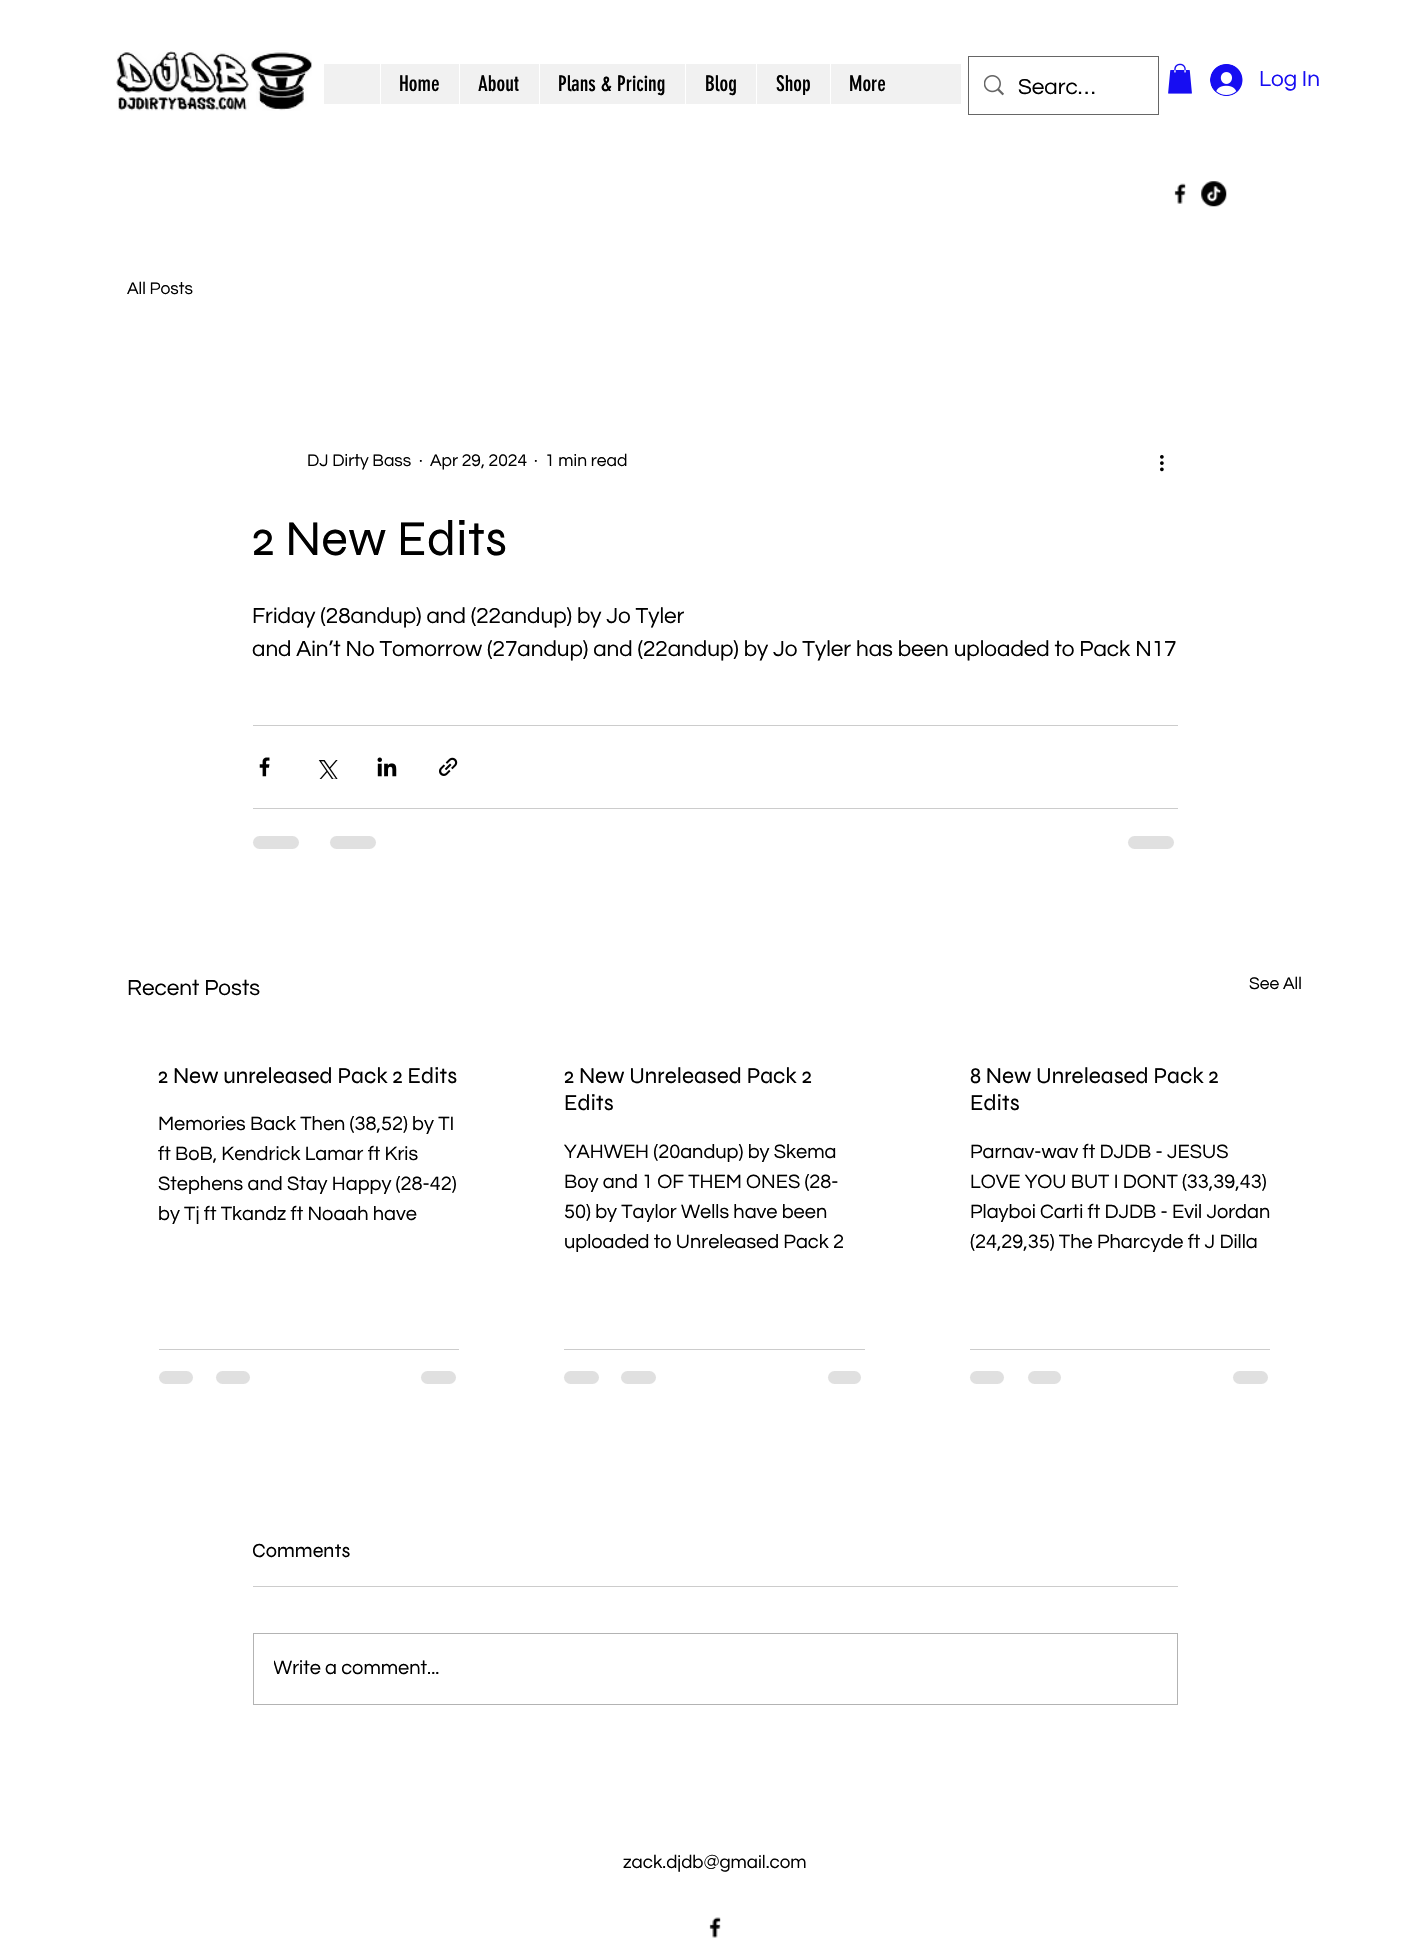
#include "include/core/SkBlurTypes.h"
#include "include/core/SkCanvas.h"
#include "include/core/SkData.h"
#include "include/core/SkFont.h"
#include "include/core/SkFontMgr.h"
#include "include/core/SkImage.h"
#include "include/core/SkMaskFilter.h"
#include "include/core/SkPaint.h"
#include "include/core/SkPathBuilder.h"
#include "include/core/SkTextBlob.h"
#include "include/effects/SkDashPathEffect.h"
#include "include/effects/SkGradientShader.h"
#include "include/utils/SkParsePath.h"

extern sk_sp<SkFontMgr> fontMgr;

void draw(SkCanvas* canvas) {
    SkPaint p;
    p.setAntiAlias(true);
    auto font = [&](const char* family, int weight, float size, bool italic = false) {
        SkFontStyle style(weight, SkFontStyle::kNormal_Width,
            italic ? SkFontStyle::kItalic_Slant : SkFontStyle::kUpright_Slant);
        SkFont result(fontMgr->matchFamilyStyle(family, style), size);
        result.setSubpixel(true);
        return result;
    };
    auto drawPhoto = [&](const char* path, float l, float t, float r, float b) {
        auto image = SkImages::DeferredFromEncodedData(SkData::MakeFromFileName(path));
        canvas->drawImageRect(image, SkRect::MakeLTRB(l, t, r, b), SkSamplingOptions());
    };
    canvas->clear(0xFFFFFFFF);
    drawPhoto("media/1.png", 116, 50, 312, 111);
    p.setColor(0xFFF1F1F1);
    canvas->drawRect(SkRect::MakeLTRB(324, 64, 961, 104), p);
    p.setColor(0xFFFFFFFF);
    canvas->drawRect(SkRect::MakeLTRB(380, 64, 381, 104), p);
    auto font1 = font("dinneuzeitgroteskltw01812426", 400, 21.25f);
    p.setColor(0xFF000000);
    canvas->drawString("Home", 399, 91, font1, p);
    p.setColor(0xFFFFFFFF);
    canvas->drawRect(SkRect::MakeLTRB(459, 64, 460, 104), p);
    p.setColor(0xFF000000);
    canvas->drawString("About", 478, 91, font1, p);
    p.setColor(0xFFFFFFFF);
    canvas->drawRect(SkRect::MakeLTRB(539, 64, 540, 104), p);
    p.setColor(0xFF000000);
    canvas->drawString("Plans & Pricing", 558, 91, font1, p);
    p.setColor(0xFFFFFFFF);
    canvas->drawRect(SkRect::MakeLTRB(685, 64, 686, 104), p);
    p.setColor(0xFF000000);
    canvas->drawString("Blog", 705, 91, font1, p);
    p.setColor(0xFFFFFFFF);
    canvas->drawRect(SkRect::MakeLTRB(756, 64, 757, 104), p);
    p.setColor(0xFF000000);
    canvas->drawString("Shop", 776, 91, font1, p);
    p.setColor(0xFFFFFFFF);
    canvas->drawRect(SkRect::MakeLTRB(830, 64, 831, 104), p);
    p.setColor(0xFF000000);
    canvas->drawString("More", 849, 91, font1, p);
    p.setStyle(SkPaint::kStroke_Style);
    p.setStrokeWidth(1);
    p.setColor(0xFF666666);
    canvas->drawRect(SkRect::MakeLTRB(968.5f, 56.5f, 1158.5f, 114.5f), p);
    drawPhoto("media/2.png", 984, 75, 1004, 96);
    auto font2 = font("Questrial", 400, 22.5f);
    p.setStyle(SkPaint::kFill_Style);
    p.setColor(0xFF000000);
    canvas->drawString("Searc…", 1018, 94, font2, p);
    drawPhoto("media/3.png", 1168, 63, 1192, 94);
    drawPhoto("media/4.png", 1210, 64, 1243, 96);
    p.setColor(0xFF170DF2);
    canvas->drawString("Log In", 1259, 86, font2, p);
    drawPhoto("media/5.png", 1174, 183, 1186, 204);
    drawPhoto("media/6.png", 1201, 181, 1227, 207);
    auto font3 = font("Questrial", 400, 17.5f);
    p.setColor(0xFF000000);
    {
        const struct { const char* s; float x, y; } items[] = {
            {"All Posts", 127, 294},
            {"DJ Dirty Bass", 307, 466},
            {"·", 419, 466},
            {"Apr 29, 2024", 430, 466},
            {"·", 534, 466},
            {"1 min read", 545, 466},
        };
        for (auto [s, x, y] : items) {
            canvas->drawString(s, x, y, font3, p);
        }
    }
    drawPhoto("media/7.png", 1160, 455, 1164, 472);
    auto font4 = font("Syne", 400, 50);
    canvas->drawString("2 New Edits", 252, 555, font4, p);
    canvas->drawString("Friday (28andup) and (22andup) by Jo Tyler", 252, 623, font2, p);
    canvas->drawString("and Ain’t No Tomorrow (27andup) and (22andup) by Jo Tyler has been uploaded to Pack N17", 252, 656, font2, p);
    p.setColor(0xFFCCCCCC);
    canvas->drawRect(SkRect::MakeLTRB(253, 725, 1178, 726), p);
    drawPhoto("media/8.png", 259, 757, 270, 777);
    drawPhoto("media/9.png", 318, 760, 338, 779);
    drawPhoto("media/10.png", 377, 757, 397, 777);
    drawPhoto("media/11.png", 439, 757, 458, 776);
    canvas->drawRect(SkRect::MakeLTRB(253, 808, 1178, 809), p);
    p.setColor(0xFFE0E0E0);
    canvas->drawRoundRect(SkRect::MakeLTRB(253, 836, 299, 849), 6.5f, 6.5f, p);
    canvas->drawRoundRect(SkRect::MakeLTRB(330, 836, 376, 849), 6.5f, 6.5f, p);
    canvas->drawRoundRect(SkRect::MakeLTRB(1128, 836, 1174, 849), 6.5f, 6.5f, p);
    p.setColor(0xFF000000);
    canvas->drawString("Recent Posts", 127, 995, font2, p);
    canvas->drawString("See All", 1249, 989, font3, p);
    auto font5 = font("Syne", 400, 22.5f);
    canvas->drawString("2 New unreleased Pack 2 Edits", 158, 1083, font5, p);
    auto font6 = font("Questrial", 400, 20);
    {
        const struct { const char* s; float x, y; } items[] = {
            {"Memories Back Then (38,52) by TI", 158, 1130},
            {"ft BoB, Kendrick Lamar ft Kris", 158, 1160},
            {"Stephens and Stay Happy (28-42)", 158, 1190},
            {"by Tj ft Tkandz ft Noaah have", 158, 1220},
        };
        for (auto [s, x, y] : items) {
            canvas->drawString(s, x, y, font6, p);
        }
    }
    p.setColor(0xFFCCCCCC);
    canvas->drawRect(SkRect::MakeLTRB(159, 1349, 459, 1350), p);
    p.setColor(0xFFE0E0E0);
    canvas->drawRoundRect(SkRect::MakeLTRB(159, 1371, 193, 1384), 6.5f, 6.5f, p);
    canvas->drawRoundRect(SkRect::MakeLTRB(216, 1371, 250, 1384), 6.5f, 6.5f, p);
    canvas->drawRoundRect(SkRect::MakeLTRB(421, 1371, 456, 1384), 6.5f, 6.5f, p);
    p.setColor(0xFF000000);
    canvas->drawString("2 New Unreleased Pack 2", 564, 1083, font5, p);
    canvas->drawString("Edits", 564, 1110, font5, p);
    {
        const struct { const char* s; float x, y; } items[] = {
            {"YAHWEH (20andup) by Skema", 564, 1158},
            {"Boy and 1 OF THEM ONES (28-", 564, 1188},
            {"50) by Taylor Wells have been", 564, 1218},
            {"uploaded to Unreleased Pack 2", 564, 1248},
        };
        for (auto [s, x, y] : items) {
            canvas->drawString(s, x, y, font6, p);
        }
    }
    p.setColor(0xFFCCCCCC);
    canvas->drawRect(SkRect::MakeLTRB(564, 1349, 865, 1350), p);
    p.setColor(0xFFE0E0E0);
    canvas->drawRoundRect(SkRect::MakeLTRB(564, 1371, 599, 1384), 6.5f, 6.5f, p);
    canvas->drawRoundRect(SkRect::MakeLTRB(621, 1371, 656, 1384), 6.5f, 6.5f, p);
    canvas->drawRoundRect(SkRect::MakeLTRB(828, 1371, 861, 1384), 6.5f, 6.5f, p);
    p.setColor(0xFF000000);
    canvas->drawString("8 New Unreleased Pack 2", 970, 1083, font5, p);
    canvas->drawString("Edits", 970, 1110, font5, p);
    {
        const struct { const char* s; float x, y; } items[] = {
            {"Parnav-wav ft DJDB - JESUS", 970, 1158},
            {"LOVE YOU BUT I DONT (33,39,43)", 970, 1188},
            {"Playboi Carti ft DJDB - Evil Jordan", 970, 1218},
            {"(24,29,35) The Pharcyde ft J Dilla", 970, 1248},
        };
        for (auto [s, x, y] : items) {
            canvas->drawString(s, x, y, font6, p);
        }
    }
    p.setColor(0xFFCCCCCC);
    canvas->drawRect(SkRect::MakeLTRB(970, 1349, 1270, 1350), p);
    p.setColor(0xFFE0E0E0);
    canvas->drawRoundRect(SkRect::MakeLTRB(970, 1371, 1004, 1384), 6.5f, 6.5f, p);
    canvas->drawRoundRect(SkRect::MakeLTRB(1028, 1371, 1061, 1384), 6.5f, 6.5f, p);
    canvas->drawRoundRect(SkRect::MakeLTRB(1233, 1371, 1268, 1384), 6.5f, 6.5f, p);
    auto font7 = font("Syne", 400, 20);
    p.setColor(0xFF000000);
    canvas->drawString("Comments", 252, 1557, font7, p);
    p.setColor(0xFFCCCCCC);
    canvas->drawRect(SkRect::MakeLTRB(253, 1586, 1178, 1587), p);
    p.setStyle(SkPaint::kStroke_Style);
    p.setColor(0xFFB3B3B3);
    canvas->drawRect(SkRect::MakeLTRB(253.5f, 1633.5f, 1177.5f, 1704.5f), p);
    canvas->save();
    canvas->clipRect(SkRect::MakeLTRB(274, 1654, 1156, 1684));
    p.setStyle(SkPaint::kFill_Style);
    p.setColor(0xFF000000);
    canvas->drawString("Write a comment...", 273, 1674, font6, p);
    canvas->restore();
    auto font8 = font("Questrial", 400, 18.75f);
    canvas->drawString("zack.djdb@gmail.com", 623, 1868, font8, p);
    drawPhoto("media/12.png", 709, 1917, 721, 1938);
}
